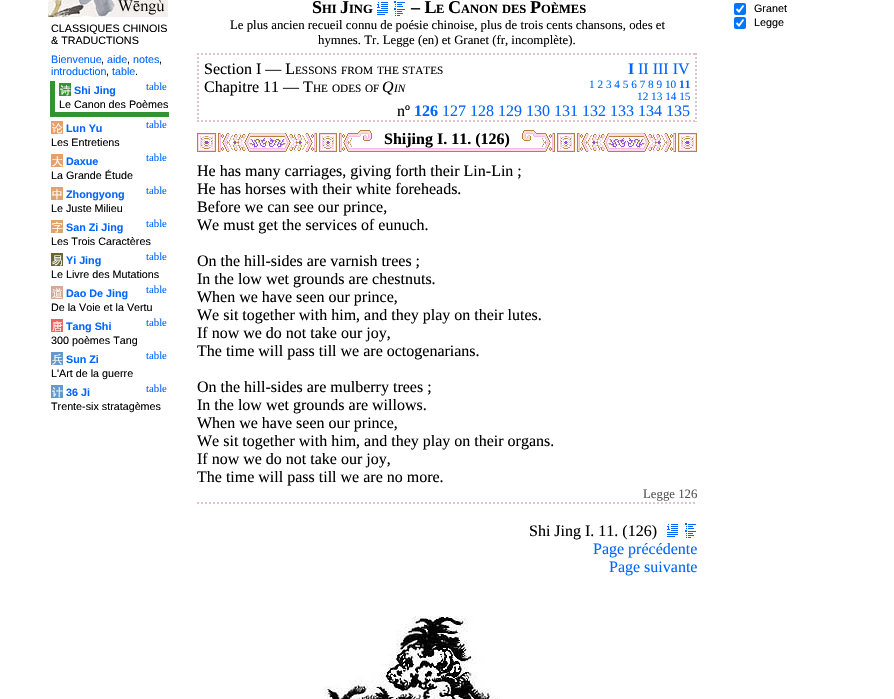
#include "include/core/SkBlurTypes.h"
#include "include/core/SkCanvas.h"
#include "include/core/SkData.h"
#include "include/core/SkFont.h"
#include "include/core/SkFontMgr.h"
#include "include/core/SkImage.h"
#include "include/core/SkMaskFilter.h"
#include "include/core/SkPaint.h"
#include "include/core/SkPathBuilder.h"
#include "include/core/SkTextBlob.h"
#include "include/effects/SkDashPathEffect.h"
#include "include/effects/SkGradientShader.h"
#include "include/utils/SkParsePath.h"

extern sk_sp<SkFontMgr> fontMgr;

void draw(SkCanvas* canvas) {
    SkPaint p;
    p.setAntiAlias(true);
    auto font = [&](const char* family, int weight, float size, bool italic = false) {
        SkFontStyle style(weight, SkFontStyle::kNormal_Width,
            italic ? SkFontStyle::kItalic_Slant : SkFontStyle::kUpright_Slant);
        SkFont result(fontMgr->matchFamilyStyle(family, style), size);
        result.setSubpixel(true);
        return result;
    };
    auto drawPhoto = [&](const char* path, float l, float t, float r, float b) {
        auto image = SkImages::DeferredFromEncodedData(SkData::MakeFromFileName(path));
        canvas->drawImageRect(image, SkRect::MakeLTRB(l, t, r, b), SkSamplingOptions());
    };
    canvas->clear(0xFFFFFFFF);
    drawPhoto("media/1.png", 48, 0, 168, 17);
    auto font1 = font("Liberation Sans", 400, 10.75f);
    p.setColor(0xFF000000);
    canvas->drawString("CLASSIQUES CHINOIS", 51, 32, font1, p);
    canvas->drawString("& TRADUCTIONS", 51, 44, font1, p);
    p.setColor(0xFF0066FF);
    canvas->drawString("Bienvenue", 51, 63, font1, p);
    p.setColor(0xFF000000);
    canvas->drawString(",", 101, 63, font1, p);
    p.setColor(0xFF0066FF);
    canvas->drawString("aide", 107, 63, font1, p);
    p.setColor(0xFF000000);
    canvas->drawString(",", 127, 63, font1, p);
    p.setColor(0xFF0066FF);
    canvas->drawString("notes", 133, 63, font1, p);
    p.setColor(0xFF000000);
    canvas->drawString(",", 159, 63, font1, p);
    p.setColor(0xFF0066FF);
    canvas->drawString("introduction", 51, 75, font1, p);
    p.setColor(0xFF000000);
    canvas->drawString(",", 106, 75, font1, p);
    p.setColor(0xFF0066FF);
    canvas->drawString("table", 112, 75, font1, p);
    p.setColor(0xFF000000);
    canvas->drawString(".", 135, 75, font1, p);
    auto font2 = font("Liberation Serif", 400, 10.75f);
    p.setColor(0xFF0066FF);
    canvas->drawString("table", 146, 90, font2, p);
    {
        const struct { float l, t, r, b; SkColor color; } items[] = {
            {50, 112, 169, 117, 0xFF329333},
            {50, 81, 55, 117, 0xFF329333},
            {59, 83, 71, 96, 0xFF329333},
        };
        for (auto [l, t, r, b, color] : items) {
            p.setColor(color);
            canvas->drawRect(SkRect::MakeLTRB(l, t, r, b), p);
        }
    }
    auto font3 = font("WenQuanYi Zen Hei", 500, 10.75f);
    p.setColor(0xFFFFFFFF);
    canvas->drawString("诗", 60, 94, font3, p);
    auto font4 = font("Liberation Sans", 700, 10.75f);
    p.setColor(0xFF0066FF);
    canvas->drawString("Shi Jing", 74, 94, font4, p);
    p.setColor(0xFF000000);
    canvas->drawString("Le Canon des Poèmes", 59, 108, font1, p);
    p.setColor(0xFFE79F6B);
    canvas->drawRect(SkRect::MakeLTRB(51, 121, 63, 134), p);
    p.setColor(0xFFFFFFFF);
    canvas->drawString("论", 52, 132, font3, p);
    p.setColor(0xFF0066FF);
    canvas->drawString("Lun Yu", 66, 132, font4, p);
    p.setColor(0xFF000000);
    canvas->drawString("Les Entretiens", 51, 146, font1, p);
    p.setColor(0xFF0066FF);
    canvas->drawString("table", 146, 128, font2, p);
    p.setColor(0xFFE79F6B);
    canvas->drawRect(SkRect::MakeLTRB(51, 154, 63, 167), p);
    p.setColor(0xFFFFFFFF);
    canvas->drawString("大", 52, 165, font3, p);
    p.setColor(0xFF0066FF);
    canvas->drawString("Daxue", 66, 165, font4, p);
    p.setColor(0xFF000000);
    canvas->drawString("La Grande Étude", 51, 179, font1, p);
    p.setColor(0xFF0066FF);
    canvas->drawString("table", 146, 161, font2, p);
    p.setColor(0xFFDFA46C);
    canvas->drawRect(SkRect::MakeLTRB(51, 187, 63, 200), p);
    p.setColor(0xFFFFFFFF);
    canvas->drawString("中", 52, 198, font3, p);
    p.setColor(0xFF0066FF);
    canvas->drawString("Zhongyong", 66, 198, font4, p);
    p.setColor(0xFF000000);
    canvas->drawString("Le Juste Milieu", 51, 212, font1, p);
    p.setColor(0xFF0066FF);
    canvas->drawString("table", 146, 194, font2, p);
    p.setColor(0xFFDFA46C);
    canvas->drawRect(SkRect::MakeLTRB(51, 220, 63, 233), p);
    p.setColor(0xFFFFFFFF);
    canvas->drawString("字", 52, 231, font3, p);
    p.setColor(0xFF0066FF);
    canvas->drawString("San Zi Jing", 66, 231, font4, p);
    p.setColor(0xFF000000);
    canvas->drawString("Les Trois Caractères", 51, 245, font1, p);
    p.setColor(0xFF0066FF);
    canvas->drawString("table", 146, 227, font2, p);
    canvas->drawString("table", 146, 260, font2, p);
    p.setColor(0xFF666633);
    canvas->drawRect(SkRect::MakeLTRB(51, 253, 63, 266), p);
    p.setColor(0xFFFFFFFF);
    canvas->drawString("易", 52, 264, font3, p);
    p.setColor(0xFF0066FF);
    canvas->drawString("Yi Jing", 66, 264, font4, p);
    p.setColor(0xFF000000);
    canvas->drawString("Le Livre des Mutations", 51, 278, font1, p);
    p.setColor(0xFFD5A994);
    canvas->drawRect(SkRect::MakeLTRB(51, 286, 63, 299), p);
    p.setColor(0xFFFFFFFF);
    canvas->drawString("道", 52, 297, font3, p);
    p.setColor(0xFF0066FF);
    canvas->drawString("Dao De Jing", 66, 297, font4, p);
    p.setColor(0xFF000000);
    canvas->drawString("De la Voie et la Vertu", 51, 311, font1, p);
    p.setColor(0xFF0066FF);
    canvas->drawString("table", 146, 293, font2, p);
    p.setColor(0xFFEB6363);
    canvas->drawRect(SkRect::MakeLTRB(51, 319, 63, 332), p);
    p.setColor(0xFFFFFFFF);
    canvas->drawString("唐", 52, 330, font3, p);
    p.setColor(0xFF0066FF);
    canvas->drawString("Tang Shi", 66, 330, font4, p);
    p.setColor(0xFF000000);
    canvas->drawString("300 poèmes Tang", 51, 344, font1, p);
    p.setColor(0xFF0066FF);
    canvas->drawString("table", 146, 326, font2, p);
    p.setColor(0xFF6599CD);
    canvas->drawRect(SkRect::MakeLTRB(51, 352, 63, 365), p);
    p.setColor(0xFFFFFFFF);
    canvas->drawString("兵", 52, 363, font3, p);
    p.setColor(0xFF0066FF);
    canvas->drawString("Sun Zi", 66, 363, font4, p);
    p.setColor(0xFF000000);
    canvas->drawString("L'Art de la guerre", 51, 377, font1, p);
    p.setColor(0xFF0066FF);
    canvas->drawString("table", 146, 359, font2, p);
    canvas->drawString("table", 146, 392, font2, p);
    p.setColor(0xFF6599CD);
    canvas->drawRect(SkRect::MakeLTRB(51, 385, 63, 398), p);
    p.setColor(0xFFFFFFFF);
    canvas->drawString("计", 52, 396, font3, p);
    p.setColor(0xFF0066FF);
    canvas->drawString("36 Ji", 66, 396, font4, p);
    p.setColor(0xFF000000);
    canvas->drawString("Trente-six stratagèmes", 51, 410, font1, p);
    auto font5 = font("Liberation Serif", 700, 18);
    canvas->drawString("S", 312, 13, font5, p);
    auto font6 = font("Liberation Serif", 700, 12.5f);
    canvas->drawString("HI", 322, 13, font6, p);
    canvas->drawString("J", 340, 13, font5, p);
    canvas->drawString("ING", 349, 13, font6, p);
    drawPhoto("media/2.png", 377, 2, 388, 15);
    drawPhoto("media/3.png", 394, 1, 405, 16);
    canvas->drawString("– L", 411, 13, font5, p);
    canvas->drawString("E", 436, 13, font6, p);
    canvas->drawString("C", 448, 13, font5, p);
    canvas->drawString("ANON", 461, 13, font6, p);
    canvas->drawString("DES", 502, 13, font6, p);
    canvas->drawString("P", 530, 13, font5, p);
    canvas->drawString("OÈMES", 541, 13, font6, p);
    auto font7 = font("Liberation Serif", 400, 12.8f);
    canvas->drawString("Le plus ancien recueil connu de poésie chinoise, plus de trois cents chansons, odes et", 230, 29, font7, p);
    canvas->drawString("hymnes. Tr. Legge (en) et Granet (fr, incomplète).", 318, 44, font7, p);
    p.setStyle(SkPaint::kStroke_Style);
    p.setStrokeWidth(2);
    p.setColor(0xFFE0C3C9);
    p.setPathEffect(SkDashPathEffect::Make({{2, 2}}, 0));
    canvas->drawPath(SkPathBuilder().moveTo(197, 54).lineTo(697, 54).detach(), p);
    p.setPathEffect(nullptr);
    p.setPathEffect(SkDashPathEffect::Make({{2, 2}}, 0));
    canvas->drawPath(SkPathBuilder().moveTo(696, 53).lineTo(696, 122).detach(), p);
    p.setPathEffect(nullptr);
    p.setPathEffect(SkDashPathEffect::Make({{2, 2}}, 0));
    canvas->drawPath(SkPathBuilder().moveTo(197, 121).lineTo(697, 121).detach(), p);
    p.setPathEffect(nullptr);
    p.setPathEffect(SkDashPathEffect::Make({{2, 2}}, 0));
    canvas->drawPath(SkPathBuilder().moveTo(198, 53).lineTo(198, 122).detach(), p);
    p.setPathEffect(nullptr);
    auto font8 = font("Liberation Serif", 400, 16);
    p.setStyle(SkPaint::kFill_Style);
    p.setColor(0xFF000000);
    canvas->drawString("Section I — L", 204, 74, font8, p);
    auto font9 = font("Liberation Serif", 400, 11.25f);
    {
        const struct { const char* s; float x, y; } items[] = {
            {"ESSONS", 295, 74},
            {"FROM", 341, 74},
            {"THE", 377, 74},
            {"STATES", 402, 74},
        };
        for (auto [s, x, y] : items) {
            canvas->drawString(s, x, y, font9, p);
        }
    }
    auto font10 = font("Liberation Serif", 700, 16);
    p.setColor(0xFF0066FF);
    canvas->drawString("I", 628, 74, font10, p);
    canvas->drawString("II III IV", 638, 74, font8, p);
    p.setColor(0xFF000000);
    canvas->drawString("Chapitre 11 — T", 204, 92, font8, p);
    {
        const struct { const char* s; float x, y; } items[] = {
            {"HE", 313, 92},
            {"ODES", 332, 92},
            {"OF", 365, 92},
        };
        for (auto [s, x, y] : items) {
            canvas->drawString(s, x, y, font9, p);
        }
    }
    auto font11 = font("Liberation Serif", 400, 16, true);
    canvas->drawString("Q", 382, 92, font11, p);
    auto font12 = font("Liberation Serif", 400, 11.25f, true);
    canvas->drawString("IN", 394, 92, font12, p);
    p.setColor(0xFF0066FF);
    canvas->drawString("1 2 3 4 5 6 7 8 9 10", 589, 88, font9, p);
    auto font13 = font("Liberation Serif", 700, 11.25f);
    canvas->drawString("11", 679, 88, font13, p);
    canvas->drawString("12 13 14 15", 637, 100, font9, p);
    p.setColor(0xFF000000);
    canvas->drawString("nº", 397, 116, font8, p);
    p.setColor(0xFF0066FF);
    canvas->drawString("126", 414, 116, font10, p);
    canvas->drawString("127 128 129 130 131 132 133 134 135", 442, 116, font8, p);
    drawPhoto("media/4.png", 197, 130, 697, 152);
    p.setColor(0xFF000000);
    canvas->drawString("Shijing I. 11. (126)", 384, 144, font10, p);
    {
        const struct { const char* s; float x, y; } items[] = {
            {"He has many carriages, giving forth their Lin-Lin ;", 197, 176},
            {"He has horses with their white foreheads.", 197, 194},
            {"Before we can see our prince,", 197, 212},
            {"We must get the services of eunuch.", 197, 230},
            {"On the hill-sides are varnish trees ;", 197, 266},
            {"In the low wet grounds are chestnuts.", 197, 284},
            {"When we have seen our prince,", 197, 302},
            {"We sit together with him, and they play on their lutes.", 197, 320},
            {"If now we do not take our joy,", 197, 338},
            {"The time will pass till we are octogenarians.", 197, 356},
            {"On the hill-sides are mulberry trees ;", 197, 392},
            {"In the low wet grounds are willows.", 197, 410},
            {"When we have seen our prince,", 197, 428},
            {"We sit together with him, and they play on their organs.", 197, 446},
            {"If now we do not take our joy,", 197, 464},
            {"The time will pass till we are no more.", 197, 482},
        };
        for (auto [s, x, y] : items) {
            canvas->drawString(s, x, y, font8, p);
        }
    }
    p.setStyle(SkPaint::kStroke_Style);
    p.setColor(0xFFE0C3C9);
    p.setPathEffect(SkDashPathEffect::Make({{2, 2}}, 0));
    canvas->drawPath(SkPathBuilder().moveTo(197, 503).lineTo(697, 503).detach(), p);
    p.setPathEffect(nullptr);
    p.setStyle(SkPaint::kFill_Style);
    p.setColor(0xFF555555);
    canvas->drawString("Legge 126", 643, 498, font7, p);
    p.setColor(0xFF000000);
    canvas->drawString("Shi Jing I. 11. (126)", 529, 536, font8, p);
    drawPhoto("media/2.png", 667, 524, 678, 537);
    drawPhoto("media/3.png", 685, 523, 696, 538);
    p.setColor(0xFF0066FF);
    canvas->drawString("Page précédente", 593, 554, font8, p);
    canvas->drawString("Page suivante", 609, 572, font8, p);
    drawPhoto("media/5.png", 324, 616, 500, 699);
    p.setColor(0xFF0075FF);
    canvas->drawRoundRect(SkRect::MakeLTRB(734, 3, 746, 15), 2, 2, p);
    p.setStyle(SkPaint::kStroke_Style);
    p.setStrokeWidth(1.9f);
    p.setColor(0xFFFFFFFF);
    canvas->drawPath(SkPathBuilder().moveTo(736.5f, 9).lineTo(739, 11.5f).lineTo(743.5f, 5.5f).detach(), p);
    p.setStyle(SkPaint::kFill_Style);
    p.setColor(0xFF000000);
    canvas->drawString("Granet", 754, 12, font1, p);
    p.setColor(0xFF0075FF);
    canvas->drawRoundRect(SkRect::MakeLTRB(734, 17, 746, 29), 2, 2, p);
    p.setStyle(SkPaint::kStroke_Style);
    p.setColor(0xFFFFFFFF);
    canvas->drawPath(SkPathBuilder().moveTo(736.5f, 23).lineTo(739, 25.5f).lineTo(743.5f, 19.5f).detach(), p);
    p.setStyle(SkPaint::kFill_Style);
    p.setColor(0xFF000000);
    canvas->drawString("Legge", 754, 26, font1, p);
}
